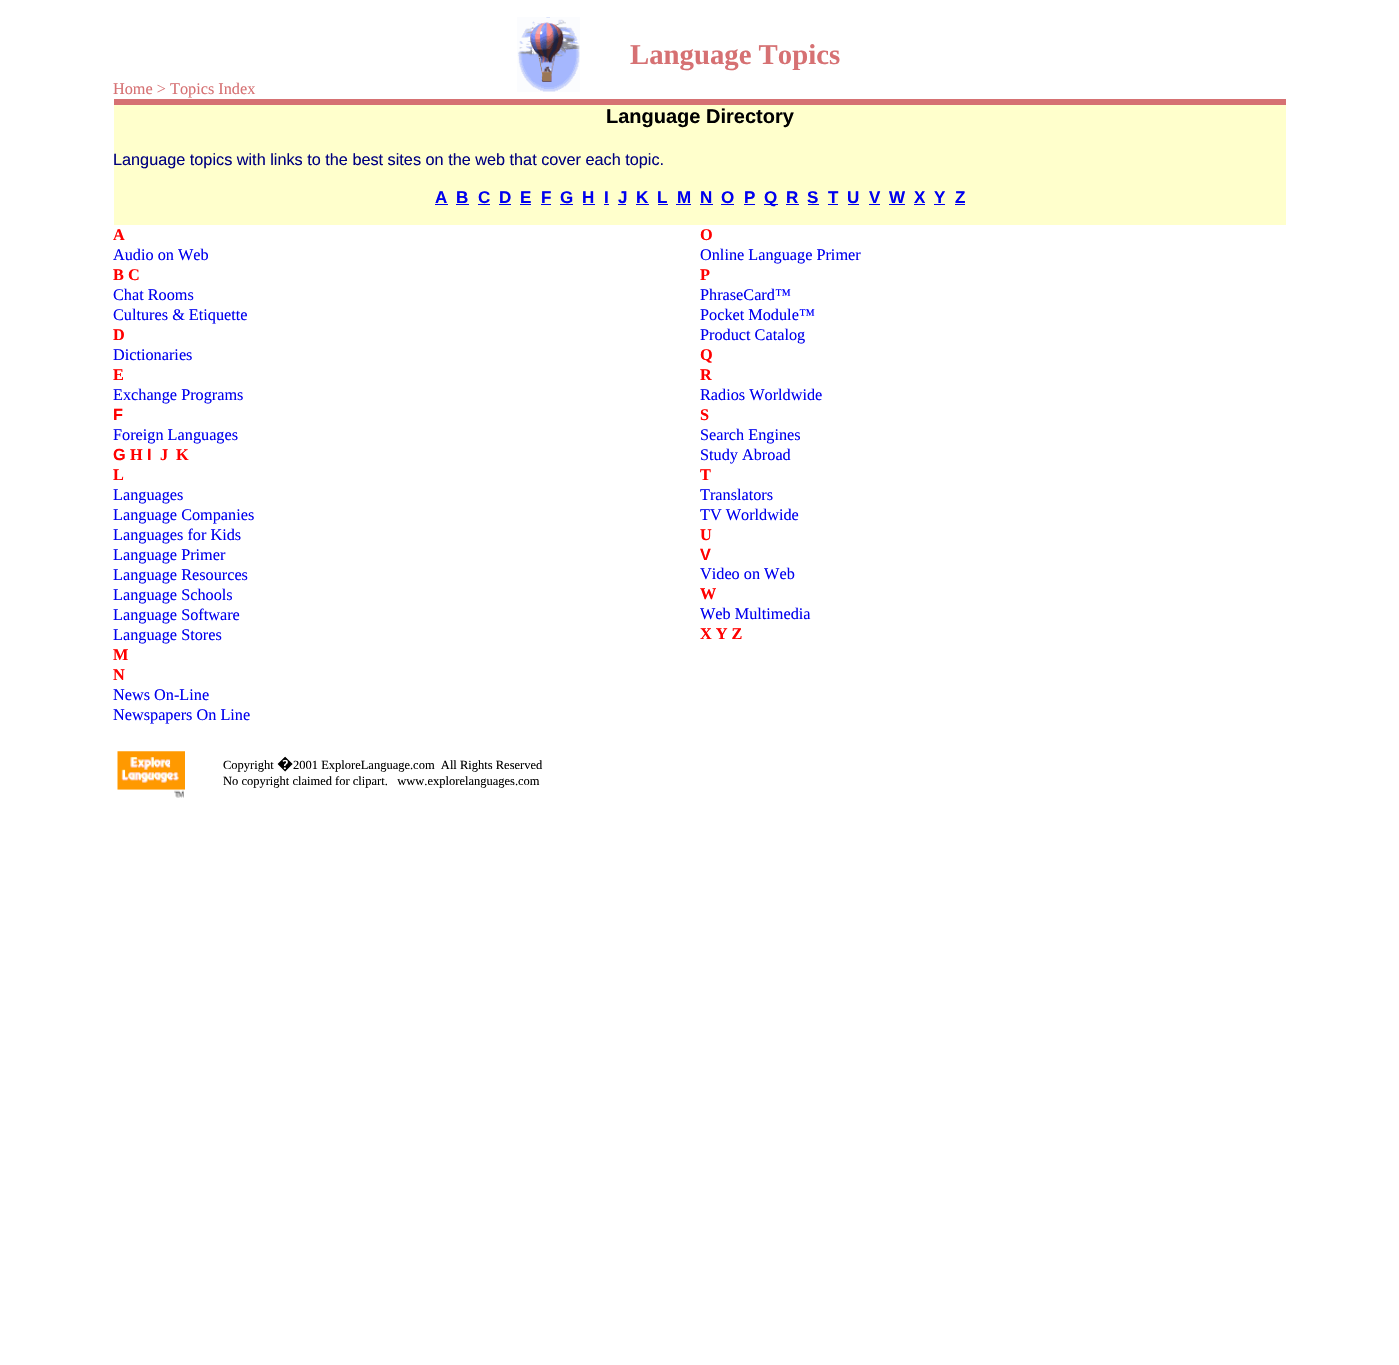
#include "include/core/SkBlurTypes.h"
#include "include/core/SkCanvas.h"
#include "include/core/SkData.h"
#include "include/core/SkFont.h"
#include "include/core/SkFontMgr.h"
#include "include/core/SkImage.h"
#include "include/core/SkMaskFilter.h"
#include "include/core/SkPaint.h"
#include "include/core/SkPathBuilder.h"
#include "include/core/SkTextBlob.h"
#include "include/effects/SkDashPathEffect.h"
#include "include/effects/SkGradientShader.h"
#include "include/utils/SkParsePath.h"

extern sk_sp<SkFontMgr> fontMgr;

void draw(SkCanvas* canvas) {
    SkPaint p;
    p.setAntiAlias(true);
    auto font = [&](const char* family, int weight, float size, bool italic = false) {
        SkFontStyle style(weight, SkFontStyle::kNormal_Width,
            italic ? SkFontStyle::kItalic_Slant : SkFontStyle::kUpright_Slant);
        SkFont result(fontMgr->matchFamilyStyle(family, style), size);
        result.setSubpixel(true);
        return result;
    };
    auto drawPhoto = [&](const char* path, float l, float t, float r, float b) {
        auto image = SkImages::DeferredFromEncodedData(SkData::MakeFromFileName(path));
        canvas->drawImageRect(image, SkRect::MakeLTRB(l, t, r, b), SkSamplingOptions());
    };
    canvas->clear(0xFFFFFFFF);
    drawPhoto("media/1.png", 517, 17, 580, 92);
    auto font1 = font("Liberation Serif", 700, 28.75f);
    p.setColor(0xFFD67173);
    canvas->drawString("Language Topics", 630, 64, font1, p);
    auto font2 = font("Liberation Serif", 400, 16.25f);
    canvas->drawString("Home > Topics Index", 113, 94, font2, p);
    canvas->drawRect(SkRect::MakeLTRB(114, 99, 1286, 105), p);
    p.setColor(0xFFFFFFCC);
    canvas->drawRect(SkRect::MakeLTRB(114, 105, 1286, 225), p);
    auto font3 = font("Liberation Sans", 700, 20);
    p.setColor(0xFF000000);
    canvas->drawString("Language Directory", 606, 123, font3, p);
    auto font4 = font("Liberation Sans", 400, 16.25f);
    p.setColor(0xFF000080);
    canvas->drawString("Language topics with links to the best sites on the web that cover each topic.", 113, 165, font4, p);
    auto font5 = font("Liberation Sans", 700, 17);
    p.setColor(0xFF0000EE);
    canvas->drawString("A", 435, 203, font5, p);
    canvas->drawRect(SkRect::MakeLTRB(435, 204, 448, 205), p);
    canvas->drawString("B", 456, 203, font5, p);
    canvas->drawRect(SkRect::MakeLTRB(456, 204, 469, 205), p);
    canvas->drawString("C", 478, 203, font5, p);
    canvas->drawRect(SkRect::MakeLTRB(478, 204, 490, 205), p);
    canvas->drawString("D", 499, 203, font5, p);
    canvas->drawRect(SkRect::MakeLTRB(499, 204, 511, 205), p);
    canvas->drawString("E", 520, 203, font5, p);
    canvas->drawRect(SkRect::MakeLTRB(520, 204, 531, 205), p);
    canvas->drawString("F", 541, 203, font5, p);
    canvas->drawRect(SkRect::MakeLTRB(541, 204, 551, 205), p);
    canvas->drawString("G", 560, 203, font5, p);
    canvas->drawRect(SkRect::MakeLTRB(560, 204, 573, 205), p);
    canvas->drawString("H", 582, 203, font5, p);
    canvas->drawRect(SkRect::MakeLTRB(583, 204, 595, 205), p);
    canvas->drawString("I", 604, 203, font5, p);
    canvas->drawRect(SkRect::MakeLTRB(604, 204, 609, 205), p);
    canvas->drawString("J", 618, 203, font5, p);
    canvas->drawRect(SkRect::MakeLTRB(618, 204, 626, 205), p);
    canvas->drawString("K", 636, 203, font5, p);
    canvas->drawRect(SkRect::MakeLTRB(636, 204, 649, 205), p);
    canvas->drawString("L", 657, 203, font5, p);
    canvas->drawRect(SkRect::MakeLTRB(658, 204, 668, 205), p);
    canvas->drawString("M", 677, 203, font5, p);
    canvas->drawRect(SkRect::MakeLTRB(676, 204, 691, 205), p);
    canvas->drawString("N", 700, 203, font5, p);
    canvas->drawRect(SkRect::MakeLTRB(700, 204, 713, 205), p);
    canvas->drawString("O", 721, 203, font5, p);
    canvas->drawRect(SkRect::MakeLTRB(721, 204, 734, 205), p);
    canvas->drawString("P", 744, 203, font5, p);
    canvas->drawRect(SkRect::MakeLTRB(744, 204, 755, 205), p);
    canvas->drawRect(SkRect::MakeLTRB(764, 204, 778, 205), p);
    canvas->drawString("Q", 764, 203, font5, p);
    canvas->drawString("R", 786, 203, font5, p);
    canvas->drawRect(SkRect::MakeLTRB(786, 204, 799, 205), p);
    canvas->drawString("S", 807, 203, font5, p);
    canvas->drawRect(SkRect::MakeLTRB(808, 204, 819, 205), p);
    canvas->drawString("T", 828, 203, font5, p);
    canvas->drawRect(SkRect::MakeLTRB(828, 204, 838, 205), p);
    canvas->drawString("U", 847, 203, font5, p);
    canvas->drawRect(SkRect::MakeLTRB(848, 204, 859, 205), p);
    canvas->drawString("V", 869, 203, font5, p);
    canvas->drawRect(SkRect::MakeLTRB(869, 204, 880, 205), p);
    canvas->drawString("W", 889, 203, font5, p);
    canvas->drawRect(SkRect::MakeLTRB(889, 204, 905, 205), p);
    canvas->drawString("X", 914, 203, font5, p);
    canvas->drawRect(SkRect::MakeLTRB(914, 204, 925, 205), p);
    canvas->drawString("Y", 934, 203, font5, p);
    canvas->drawRect(SkRect::MakeLTRB(934, 204, 945, 205), p);
    canvas->drawString("Z", 955, 203, font5, p);
    canvas->drawRect(SkRect::MakeLTRB(955, 204, 965, 205), p);
    auto font6 = font("Liberation Serif", 700, 16.25f);
    p.setColor(0xFFFF0000);
    canvas->drawString("A", 113, 240, font6, p);
    p.setColor(0xFF0000EE);
    canvas->drawString("Audio on Web", 113, 260, font2, p);
    p.setColor(0xFFFF0000);
    canvas->drawString("B C", 113, 280, font6, p);
    p.setColor(0xFF0000EE);
    canvas->drawString("Chat Rooms", 113, 300, font2, p);
    canvas->drawString("Cultures & Etiquette", 113, 320, font2, p);
    p.setColor(0xFFFF0000);
    canvas->drawString("D", 113, 340, font6, p);
    p.setColor(0xFF0000EE);
    canvas->drawString("Dictionaries", 113, 360, font2, p);
    p.setColor(0xFFFF0000);
    canvas->drawString("E", 113, 380, font6, p);
    p.setColor(0xFF0000EE);
    canvas->drawString("Exchange Programs", 113, 400, font2, p);
    auto font7 = font("Liberation Sans", 700, 16.25f);
    p.setColor(0xFFFF0000);
    canvas->drawString("F", 113, 420, font7, p);
    p.setColor(0xFF0000EE);
    canvas->drawString("Foreign Languages", 113, 440, font2, p);
    p.setColor(0xFFFF0000);
    canvas->drawString("G", 113, 460, font7, p);
    canvas->drawString("H", 130, 460, font6, p);
    canvas->drawString("I", 147, 460, font7, p);
    {
        const struct { const char* s; float x, y; } items[] = {
            {"J", 160, 460},
            {"K", 176, 460},
            {"L", 113, 480},
        };
        for (auto [s, x, y] : items) {
            canvas->drawString(s, x, y, font6, p);
        }
    }
    p.setColor(0xFF0000EE);
    {
        const struct { const char* s; float x, y; } items[] = {
            {"Languages", 113, 500},
            {"Language Companies", 113, 520},
            {"Languages for Kids", 113, 540},
            {"Language Primer", 113, 560},
            {"Language Resources", 113, 580},
            {"Language Schools", 113, 600},
            {"Language Software", 113, 620},
            {"Language Stores", 113, 640},
        };
        for (auto [s, x, y] : items) {
            canvas->drawString(s, x, y, font2, p);
        }
    }
    p.setColor(0xFFFF0000);
    canvas->drawString("M", 113, 660, font6, p);
    canvas->drawString("N", 113, 680, font6, p);
    p.setColor(0xFF0000EE);
    canvas->drawString("News On-Line", 113, 700, font2, p);
    canvas->drawString("Newspapers On Line", 113, 720, font2, p);
    p.setColor(0xFFFF0000);
    canvas->drawString("O", 700, 240, font6, p);
    p.setColor(0xFF0000EE);
    canvas->drawString("Online Language Primer", 700, 260, font2, p);
    p.setColor(0xFFFF0000);
    canvas->drawString("P", 700, 280, font6, p);
    p.setColor(0xFF0000EE);
    canvas->drawString("PhraseCard", 700, 300, font2, p);
    p.setColor(0xFF0000FF);
    canvas->drawString("™", 775, 300, font2, p);
    p.setColor(0xFF0000EE);
    canvas->drawString("Pocket Module", 700, 320, font2, p);
    p.setColor(0xFF0000FF);
    canvas->drawString("™", 799, 320, font2, p);
    p.setColor(0xFF0000EE);
    canvas->drawString("Product Catalog", 700, 340, font2, p);
    p.setColor(0xFFFF0000);
    canvas->drawString("Q", 700, 360, font6, p);
    canvas->drawString("R", 700, 380, font6, p);
    p.setColor(0xFF0000EE);
    canvas->drawString("Radios Worldwide", 700, 400, font2, p);
    p.setColor(0xFFFF0000);
    canvas->drawString("S", 700, 420, font6, p);
    p.setColor(0xFF0000EE);
    canvas->drawString("Search Engines", 700, 440, font2, p);
    canvas->drawString("Study Abroad", 700, 460, font2, p);
    p.setColor(0xFFFF0000);
    canvas->drawString("T", 700, 480, font6, p);
    p.setColor(0xFF0000EE);
    canvas->drawString("Translators", 700, 500, font2, p);
    canvas->drawString("TV Worldwide", 700, 520, font2, p);
    p.setColor(0xFFFF0000);
    canvas->drawString("U", 700, 540, font6, p);
    canvas->drawString("V", 700, 560, font7, p);
    p.setColor(0xFF0000EE);
    canvas->drawString("Video on Web", 700, 579, font2, p);
    p.setColor(0xFFFF0000);
    canvas->drawString("W", 700, 599, font6, p);
    p.setColor(0xFF0000EE);
    canvas->drawString("Web Multimedia", 700, 619, font2, p);
    p.setColor(0xFFFF0000);
    canvas->drawString("X Y Z", 700, 639, font6, p);
    drawPhoto("media/2.png", 117, 751, 185, 798);
    auto font8 = font("Liberation Serif", 400, 12.5f);
    p.setColor(0xFF000000);
    canvas->drawString("Copyright", 223, 769, font8, p);
    auto font9 = font("Noto Sans", 400, 16.25f);
    canvas->drawString("�", 277, 769, font9, p);
    canvas->drawString("2001 ExploreLanguage.com  All Rights Reserved", 293, 769, font8, p);
    canvas->drawString("No copyright claimed for clipart.   www.explorelanguages.com", 223, 785, font8, p);
}
